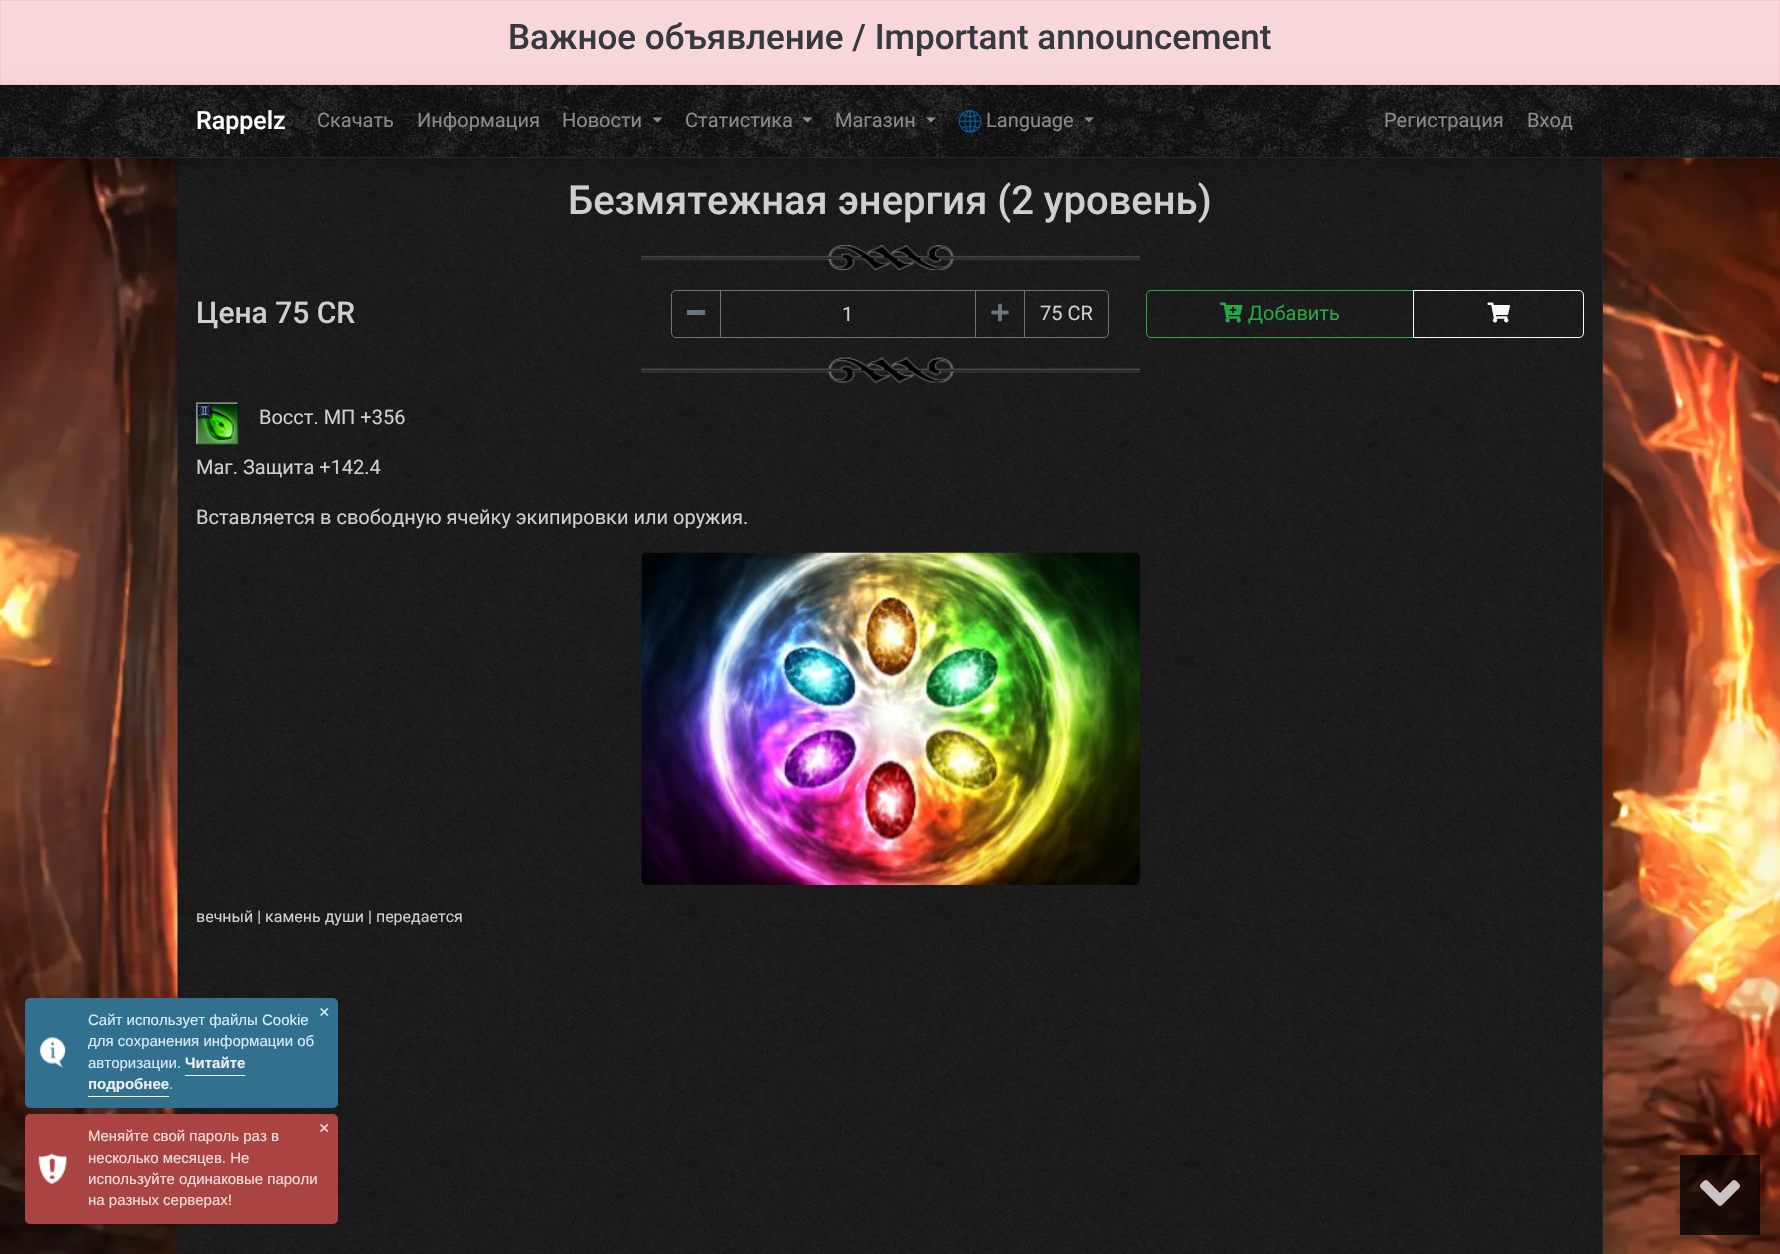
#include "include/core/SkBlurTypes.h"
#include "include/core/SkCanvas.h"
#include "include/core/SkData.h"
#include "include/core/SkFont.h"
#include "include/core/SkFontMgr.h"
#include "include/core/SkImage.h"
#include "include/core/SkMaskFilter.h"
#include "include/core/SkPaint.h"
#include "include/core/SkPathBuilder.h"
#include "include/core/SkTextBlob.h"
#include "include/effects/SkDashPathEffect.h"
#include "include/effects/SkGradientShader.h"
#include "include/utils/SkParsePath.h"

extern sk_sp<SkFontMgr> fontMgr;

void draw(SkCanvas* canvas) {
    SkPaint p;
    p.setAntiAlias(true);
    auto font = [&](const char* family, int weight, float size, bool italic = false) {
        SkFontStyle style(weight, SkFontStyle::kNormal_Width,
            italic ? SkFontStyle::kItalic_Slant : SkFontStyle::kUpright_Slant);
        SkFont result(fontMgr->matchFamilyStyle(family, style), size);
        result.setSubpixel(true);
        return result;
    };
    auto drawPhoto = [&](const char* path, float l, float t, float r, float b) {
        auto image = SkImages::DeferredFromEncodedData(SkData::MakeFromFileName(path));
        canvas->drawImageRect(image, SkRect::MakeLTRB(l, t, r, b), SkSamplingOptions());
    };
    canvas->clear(0xFFFFFFFF);
    p.setColor(0xFFF8D7DA);
    canvas->drawRect(SkRect::MakeLTRB(0.5f, 0.5f, 1779.5f, 84.5f), p);
    p.setStyle(SkPaint::kStroke_Style);
    p.setStrokeWidth(1);
    p.setColor(0xFFF5C6CB);
    canvas->drawRect(SkRect::MakeLTRB(0.5f, 0.5f, 1779.5f, 84.5f), p);
    auto font1 = font("Roboto", 500, 35);
    p.setStyle(SkPaint::kFill_Style);
    p.setColor(0xFF343A40);
    canvas->drawString("Важное объявление / Important announcement", 508, 49, font1, p);
    drawPhoto("media/3.png", 0, 158, 1780, 1254);
    p.setColor(0x26000000);
    p.setMaskFilter(SkMaskFilter::MakeBlur(kNormal_SkBlurStyle, 10));
    canvas->drawRect(SkRect::MakeLTRB(178, 168, 1603, 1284), p);
    p.setMaskFilter(nullptr);
    p.setColor(0xFF343A40);
    canvas->drawRect(SkRect::MakeLTRB(1602, 158, 1603, 1254), p);
    drawPhoto("media/4.png", 177, 158, 1603, 1254);
    p.setColor(0x26000000);
    p.setMaskFilter(SkMaskFilter::MakeBlur(kNormal_SkBlurStyle, 10));
    canvas->drawRect(SkRect::MakeLTRB(0, 95, 1780, 168), p);
    p.setMaskFilter(nullptr);
    p.setColor(0xFF343A40);
    canvas->drawRect(SkRect::MakeLTRB(0, 157, 1780, 158), p);
    drawPhoto("media/1.png", 0, 85, 1780, 158);
    auto font2 = font("Roboto", 500, 25);
    p.setColor(0xFFFFFFFF);
    canvas->drawString("Rappelz", 196, 129, font2, p);
    auto font3 = font("Roboto", 400, 20);
    p.setColor(0xFF8A8A8A);
    {
        const struct { const char* s; float x, y; } items[] = {
            {"Скачать", 317, 127},
            {"Информация", 417, 127},
            {"Новости", 562, 127},
        };
        for (auto [s, x, y] : items) {
            canvas->drawString(s, x, y, font3, p);
        }
    }
    p.setColor(0x80FFFFFF);
    canvas->drawPath(SkPathBuilder().moveTo(652.5f, 117.5f).lineTo(662.5f, 117.5f).lineTo(657.5f, 122.5f).close().detach(), p);
    p.setColor(0xFF8A8A8A);
    canvas->drawString("Статистика", 685, 127, font3, p);
    p.setColor(0x80FFFFFF);
    canvas->drawPath(SkPathBuilder().moveTo(802.5f, 117.5f).lineTo(812.5f, 117.5f).lineTo(807.5f, 122.5f).close().detach(), p);
    p.setColor(0xFF8A8A8A);
    canvas->drawString("Магазин", 835, 127, font3, p);
    p.setColor(0x80FFFFFF);
    canvas->drawPath(SkPathBuilder().moveTo(926, 117.5f).lineTo(936, 117.5f).lineTo(931, 122.5f).close().detach(), p);
    drawPhoto("media/2.png", 958, 110, 982, 133);
    p.setColor(0xFF8A8A8A);
    canvas->drawString("Language", 986, 127, font3, p);
    p.setColor(0x80FFFFFF);
    canvas->drawPath(SkPathBuilder().moveTo(1084, 117.5f).lineTo(1094, 117.5f).lineTo(1089, 122.5f).close().detach(), p);
    p.setColor(0xFF8A8A8A);
    canvas->drawString("Регистрация", 1384, 127, font3, p);
    canvas->drawString("Вход", 1527, 127, font3, p);
    auto font4 = font("Roboto", 500, 40);
    p.setColor(0xFFCFCFCF);
    canvas->drawString("Безмятежная энергия (2 уровень)", 568, 214, font4, p);
    drawPhoto("media/5.png", 641, 245, 1140, 270);
    auto font5 = font("Roboto", 500, 30);
    canvas->drawString("Цена 75 CR", 196, 323, font5, p);
    p.setStyle(SkPaint::kStroke_Style);
    p.setColor(0xFF6C757D);
    canvas->drawRect(SkRect::MakeLTRB(720.5f, 290.5f, 975.5f, 337.5f), p);
    canvas->drawPath(SkPathBuilder().moveTo(676, 290.5f).lineTo(720.5f, 290.5f).lineTo(720.5f, 337.5f).lineTo(676, 337.5f).cubicTo(673.5f, 337.5f, 671.5f, 335.5f, 671.5f, 333).lineTo(671.5f, 295).cubicTo(671.5f, 292.5f, 673.5f, 290.5f, 676, 290.5f).close().detach(), p);
    p.setStyle(SkPaint::kFill_Style);
    canvas->drawRect(SkRect::MakeLTRB(687, 310, 705, 315), p);
    p.setColor(0xFFCFCFCF);
    canvas->drawString("1", 842, 321, font3, p);
    p.setStyle(SkPaint::kStroke_Style);
    p.setColor(0xFF6C757D);
    canvas->drawPath(SkPathBuilder().moveTo(1024.5f, 290.5f).lineTo(1104, 290.5f).cubicTo(1106.5f, 290.5f, 1108.5f, 292.5f, 1108.5f, 295).lineTo(1108.5f, 333).cubicTo(1108.5f, 335.5f, 1106.5f, 337.5f, 1104, 337.5f).lineTo(1024.5f, 337.5f).close().detach(), p);
    canvas->drawRect(SkRect::MakeLTRB(975.5f, 290.5f, 1024.5f, 337.5f), p);
    drawPhoto("media/6.png", 991, 303, 1009, 322);
    p.setStyle(SkPaint::kFill_Style);
    p.setColor(0xFFCFCFCF);
    canvas->drawString("75 CR", 1040, 320, font3, p);
    p.setStyle(SkPaint::kStroke_Style);
    p.setColor(0xFF28A745);
    canvas->drawPath(SkPathBuilder().moveTo(1151, 290.5f).lineTo(1413.5f, 290.5f).lineTo(1413.5f, 337.5f).lineTo(1151, 337.5f).cubicTo(1148.5f, 337.5f, 1146.5f, 335.5f, 1146.5f, 333).lineTo(1146.5f, 295).cubicTo(1146.5f, 292.5f, 1148.5f, 290.5f, 1151, 290.5f).close().detach(), p);
    drawPhoto("media/7.png", 1220, 302, 1243, 323);
    p.setStyle(SkPaint::kFill_Style);
    canvas->drawString("Добавить", 1248, 320, font3, p);
    p.setStyle(SkPaint::kStroke_Style);
    p.setColor(0xFFF8F9FA);
    canvas->drawPath(SkPathBuilder().moveTo(1413.5f, 290.5f).lineTo(1579, 290.5f).cubicTo(1581.5f, 290.5f, 1583.5f, 292.5f, 1583.5f, 295).lineTo(1583.5f, 333).cubicTo(1583.5f, 335.5f, 1581.5f, 337.5f, 1579, 337.5f).lineTo(1413.5f, 337.5f).close().detach(), p);
    drawPhoto("media/8.png", 1487, 302, 1510, 323);
    drawPhoto("media/9.png", 641, 357, 1140, 383);
    drawPhoto("media/10.png", 196, 402, 239, 445);
    p.setStyle(SkPaint::kFill_Style);
    p.setColor(0xFFCFCFCF);
    {
        const struct { const char* s; float x, y; } items[] = {
            {"Восст. МП +356", 259, 424},
            {"Маг. Защита +142.4", 196, 474},
            {"Вставляется в свободную ячейку экипировки или оружия.", 196, 524},
        };
        for (auto [s, x, y] : items) {
            canvas->drawString(s, x, y, font3, p);
        }
    }
    drawPhoto("media/11.png", 641, 552, 1140, 885);
    auto font6 = font("Roboto", 400, 16);
    canvas->drawString("вечный | камень души | передается", 196, 922, font6, p);
    p.setColor(0xFF31708F);
    canvas->drawRoundRect(SkRect::MakeLTRB(25, 998, 338, 1108), 5, 5, p);
    drawPhoto("media/12.png", 39, 1037, 66, 1068);
    auto font7 = font("Liberation Sans", 400, 15);
    p.setColor(0xFFD9EDF7);
    canvas->drawString("Сайт использует файлы Cookie", 88, 1025, font7, p);
    auto font8 = font("Liberation Sans", 400, 18);
    canvas->drawString("×", 319, 1018, font8, p);
    canvas->drawString("для сохранения информации об", 88, 1046, font7, p);
    canvas->drawString("авторизации.", 88, 1068, font7, p);
    auto font9 = font("Liberation Sans", 700, 15);
    p.setColor(0xFFEEEEEE);
    canvas->drawString("Читайте", 185, 1068, font9, p);
    p.setColor(0xFFFFFFFF);
    canvas->drawRect(SkRect::MakeLTRB(185, 1075, 245, 1076), p);
    p.setColor(0xFFEEEEEE);
    canvas->drawString("подробнее", 88, 1089, font9, p);
    p.setColor(0xFFFFFFFF);
    canvas->drawRect(SkRect::MakeLTRB(88, 1096, 169, 1097), p);
    p.setColor(0xFFD9EDF7);
    canvas->drawString(".", 169, 1089, font7, p);
    p.setColor(0xFFA94442);
    canvas->drawRoundRect(SkRect::MakeLTRB(25, 1114, 338, 1224), 5, 5, p);
    drawPhoto("media/13.png", 38, 1153, 67, 1184);
    p.setColor(0xFFF2DEDE);
    canvas->drawString("Меняйте свой пароль раз в", 88, 1141, font7, p);
    canvas->drawString("×", 319, 1134, font8, p);
    {
        const struct { const char* s; float x, y; } items[] = {
            {"несколько месяцев. Не", 88, 1163},
            {"используйте одинаковые пароли", 88, 1184},
            {"на разных серверах!", 88, 1205},
        };
        for (auto [s, x, y] : items) {
            canvas->drawString(s, x, y, font7, p);
        }
    }
    p.setColor(0xBF000000);
    canvas->drawRect(SkRect::MakeLTRB(1680, 1155, 1760, 1235), p);
    drawPhoto("media/14.png", 1700, 1180, 1740, 1206);
}
